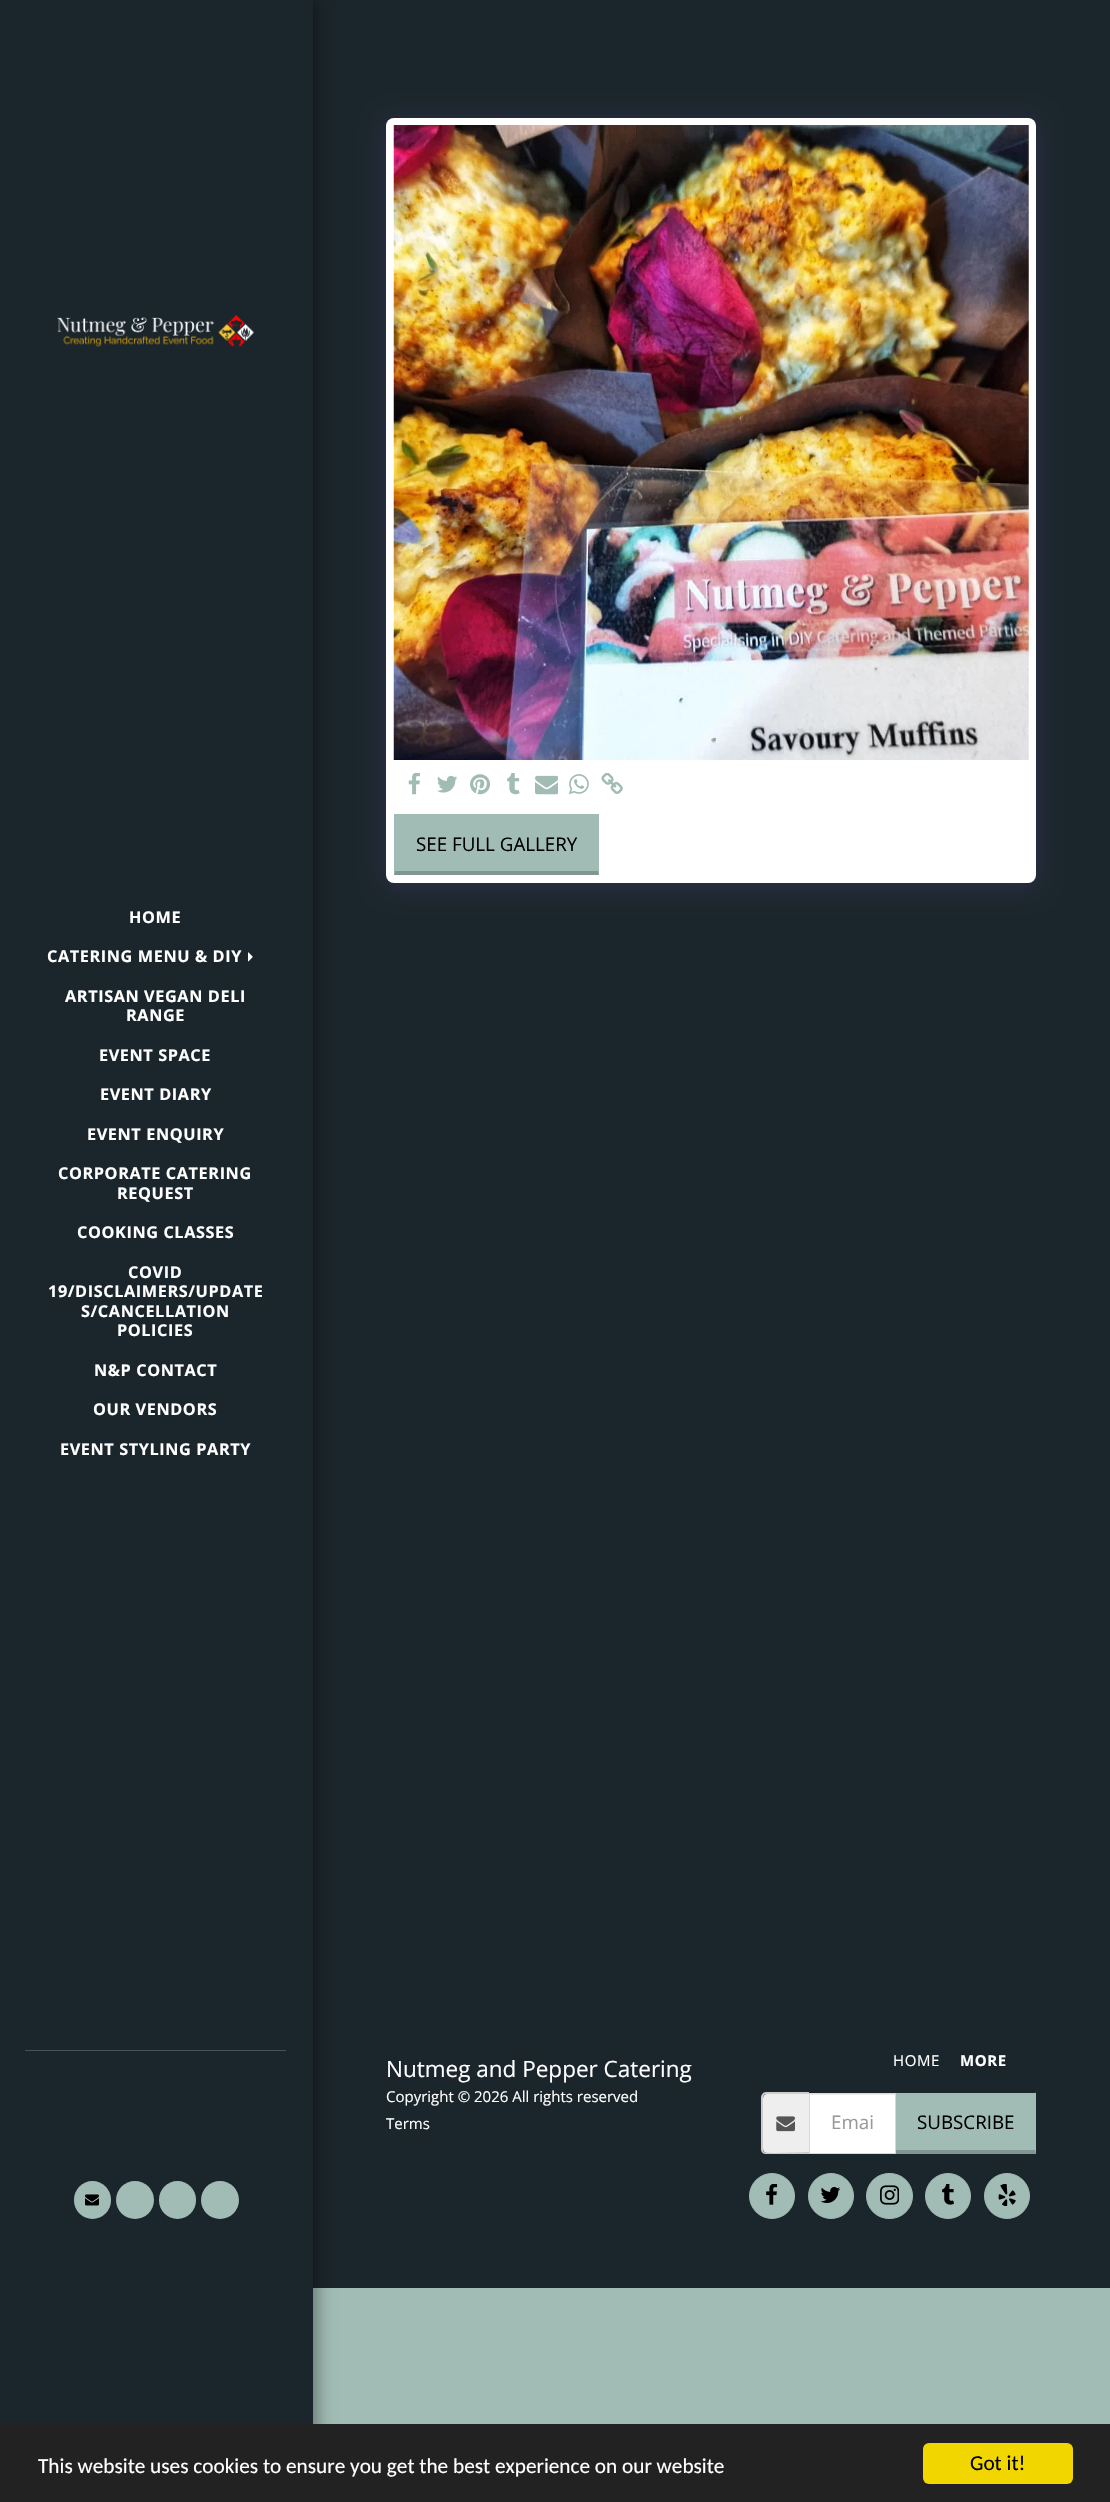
#include "include/core/SkBlurTypes.h"
#include "include/core/SkCanvas.h"
#include "include/core/SkData.h"
#include "include/core/SkFont.h"
#include "include/core/SkFontMgr.h"
#include "include/core/SkImage.h"
#include "include/core/SkMaskFilter.h"
#include "include/core/SkPaint.h"
#include "include/core/SkPathBuilder.h"
#include "include/core/SkTextBlob.h"
#include "include/effects/SkDashPathEffect.h"
#include "include/effects/SkGradientShader.h"
#include "include/utils/SkParsePath.h"

extern sk_sp<SkFontMgr> fontMgr;

void draw(SkCanvas* canvas) {
    SkPaint p;
    p.setAntiAlias(true);
    auto font = [&](const char* family, int weight, float size, bool italic = false) {
        SkFontStyle style(weight, SkFontStyle::kNormal_Width,
            italic ? SkFontStyle::kItalic_Slant : SkFontStyle::kUpright_Slant);
        SkFont result(fontMgr->matchFamilyStyle(family, style), size);
        result.setSubpixel(true);
        return result;
    };
    auto drawTracked = [&](const char* s, float x, float y, const SkFont& font, const SkPaint& ink, float letter, float word) {
        std::vector<SkGlyphID> glyphs(font.countText(s, strlen(s), SkTextEncoding::kUTF8));
        std::vector<float> xs(glyphs.size());
        font.textToGlyphs(s, strlen(s), SkTextEncoding::kUTF8, glyphs);
        font.getXPos(glyphs, xs, x);
        float extra = 0;
        for (size_t i = 0; i < glyphs.size(); i++) {
            xs[i] += extra;
            extra += letter + word * (glyphs[i] == font.unicharToGlyph(' '));
        }
        canvas->drawTextBlob(SkTextBlob::MakeFromPosHGlyphs(glyphs, xs, y, font), 0, 0, ink);
    };
    auto drawPhoto = [&](const char* path, float l, float t, float r, float b) {
        auto image = SkImages::DeferredFromEncodedData(SkData::MakeFromFileName(path));
        canvas->drawImageRect(image, SkRect::MakeLTRB(l, t, r, b), SkSamplingOptions());
    };
    canvas->clear(0xFFA1BCB4);
    p.setColor(0xFF1B262C);
    canvas->drawRect(SkRect::MakeLTRB(313, 0, 1110, 2288), p);
    p.setColor(0x59000000);
    p.setMaskFilter(SkMaskFilter::MakeBlur(kNormal_SkBlurStyle, 7.5f));
    canvas->drawRect(SkRect::MakeLTRB(0, -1, 318, 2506), p);
    p.setMaskFilter(nullptr);
    p.setColor(0xFF1B262C);
    canvas->drawRect(SkRect::MakeLTRB(0, 0, 313, 2424), p);
    drawPhoto("media/1.png", 57, 315, 254, 347);
    auto font1 = font("Open Sans", 700, 16.25f);
    p.setColor(0xFFFFFFFF);
    drawTracked("HOME", 129, 923, font1, p, 0.6f, 0);
    drawTracked("CATERING MENU & DIY", 47, 962, font1, p, 0.6f, 0);
    drawPhoto("media/2.png", 248, 952, 253, 962);
    {
        const struct { const char* s; float x, y; } items[] = {
            {"ARTISAN VEGAN DELI", 65, 1002},
            {"RANGE", 126, 1021},
            {"EVENT SPACE", 99, 1061},
            {"EVENT DIARY", 100, 1100},
            {"EVENT ENQUIRY", 87, 1140},
            {"CORPORATE CATERING", 58, 1179},
            {"REQUEST", 117, 1199},
            {"COOKING CLASSES", 77, 1238},
            {"COVID", 128, 1278},
            {"19/DISCLAIMERS/UPDATE", 48, 1297},
            {"S/CANCELLATION", 81, 1317},
            {"POLICIES", 117, 1336},
            {"N&P CONTACT", 94, 1376},
            {"OUR VENDORS", 93, 1415},
            {"EVENT STYLING PARTY", 60, 1455},
        };
        for (auto [s, x, y] : items) {
            drawTracked(s, x, y, font1, p, 0.6f, 0);
        }
    }
    p.setColor(0xFF495156);
    canvas->drawRect(SkRect::MakeLTRB(25, 2050, 286, 2051), p);
    p.setColor(0xFFA1BCB4);
    canvas->drawRoundRect(SkRect::MakeLTRB(74, 2181, 111, 2219), 18.5f, 18.5f, p);
    drawPhoto("media/3.png", 85, 2194, 99, 2206);
    canvas->drawCircle(135, 2200, 19, p);
    canvas->drawRoundRect(SkRect::MakeLTRB(159, 2181, 196, 2219), 18.5f, 18.5f, p);
    canvas->drawCircle(220, 2200, 19, p);
    p.setColor(0x664D3F7A);
    p.setMaskFilter(SkMaskFilter::MakeBlur(kNormal_SkBlurStyle, 12.5f));
    canvas->drawRoundRect(SkRect::MakeLTRB(386, 121, 1036, 886), 8, 8, p);
    p.setMaskFilter(nullptr);
    p.setColor(0xFFFFFFFF);
    canvas->drawRoundRect(SkRect::MakeLTRB(386, 118, 1036, 883), 8, 8, p);
    drawPhoto("media/4.png", 393, 125, 1029, 760);
    drawPhoto("media/5.png", 408, 773, 420, 795);
    drawPhoto("media/6.png", 437, 775, 458, 793);
    drawPhoto("media/7.png", 470, 774, 490, 795);
    drawPhoto("media/8.png", 507, 773, 520, 795);
    drawPhoto("media/9.png", 535, 775, 558, 795);
    drawPhoto("media/10.png", 569, 774, 589, 795);
    drawPhoto("media/11.png", 601, 773, 623, 794);
    p.setColor(0xFFA1BCB4);
    canvas->drawRect(SkRect::MakeLTRB(394, 814, 599, 875), p);
    p.setColor(0xFF819690);
    canvas->drawPath(SkPathBuilder().moveTo(599, 875).lineTo(394, 875).lineTo(395, 871).lineTo(598, 871).close().detach(), p);
    p.setColor(0xFFA1BCB4);
    canvas->drawPath(SkPathBuilder().moveTo(394, 875).lineTo(394, 814).lineTo(395, 815).lineTo(395, 871).close().detach(), p);
    auto font2 = font("Open Sans", 400, 18.75f);
    p.setColor(0xFF000000);
    canvas->drawString("SEE FULL GALLERY", 416, 851, font2, p);
    auto font3 = font("Open Sans", 400, 22.5f);
    p.setColor(0xFFFFFFFF);
    canvas->drawString("Nutmeg and Pepper Catering", 386, 2077, font3, p);
    auto font4 = font("Open Sans", 400, 15);
    canvas->drawString("Copyright © 2026 All rights reserved", 386, 2102, font4, p);
    canvas->drawString("Terms", 386, 2129, font4, p);
    drawTracked("HOME", 893, 2066, font4, p, 0.6f, 0);
    auto font5 = font("Open Sans", 700, 15);
    drawTracked("MORE", 960, 2066, font5, p, 0.6f, 0);
    p.setColor(0xFFEEEEEE);
    canvas->drawPath(SkPathBuilder().moveTo(767, 2094).lineTo(809, 2094).lineTo(809, 2153).lineTo(767, 2153).cubicTo(765, 2153, 763, 2151, 763, 2149).lineTo(763, 2098).cubicTo(763, 2096, 765, 2094, 767, 2094).close().detach(), p);
    p.setColor(0xFFCCCCCC);
    canvas->drawPath(SkPathBuilder(SkPathFillType::kEvenOdd).moveTo(766, 2092).lineTo(809, 2092).lineTo(809, 2154).lineTo(766, 2154).cubicTo(763, 2154, 761, 2152, 761, 2149).lineTo(761, 2098).cubicTo(761, 2095, 763, 2092, 766, 2092).close().moveTo(766, 2094).lineTo(809, 2094).lineTo(809, 2152).cubicTo(803, 2152, 767, 2154, 764, 2152).lineTo(763, 2150).lineTo(763, 2097).lineTo(764, 2095).close().detach(), p);
    drawPhoto("media/12.png", 776, 2116, 795, 2132);
    {
        const struct { float l, t, r, b; SkColor color; } items[] = {
            {810, 2095, 895, 2153, 0xFFFFFFFF},
            {810, 2094, 895, 2095, 0xFFECECEC},
            {896, 2093, 1036, 2154, 0xFFA1BCB4},
        };
        for (auto [l, t, r, b, color] : items) {
            p.setColor(color);
            canvas->drawRect(SkRect::MakeLTRB(l, t, r, b), p);
        }
    }
    canvas->drawPath(SkPathBuilder().moveTo(1036, 2092).lineTo(1036, 2154).lineTo(1035, 2150).lineTo(1035, 2094).close().detach(), p);
    p.setColor(0xFF819690);
    canvas->drawPath(SkPathBuilder().moveTo(1036, 2154).lineTo(895, 2154).lineTo(896, 2150).lineTo(1035, 2150).close().detach(), p);
    p.setStyle(SkPaint::kStroke_Style);
    p.setStrokeWidth(1);
    p.setColor(0xFFD4D7E5);
    canvas->drawRect(SkRect::MakeLTRB(809.5f, 2093.5f, 895.5f, 2153.5f), p);
    p.setStyle(SkPaint::kFill_Style);
    p.setColor(0xFF999999);
    canvas->drawString("Emai", 831, 2129, font2, p);
    p.setColor(0xFF000000);
    canvas->drawString("SUBSCRIBE", 917, 2129, font2, p);
    p.setColor(0xFFA1BCB4);
    canvas->drawCircle(772, 2196, 22.5f, p);
    p.setStyle(SkPaint::kStroke_Style);
    canvas->drawCircle(772, 2196, 22.5f, p);
    drawPhoto("media/13.png", 766, 2184, 778, 2205);
    p.setStyle(SkPaint::kFill_Style);
    canvas->drawCircle(831, 2196, 22.5f, p);
    p.setStyle(SkPaint::kStroke_Style);
    canvas->drawCircle(831, 2196, 22.5f, p);
    drawPhoto("media/14.png", 820, 2187, 841, 2203);
    p.setStyle(SkPaint::kFill_Style);
    canvas->drawRoundRect(SkRect::MakeLTRB(866.5f, 2173.5f, 912.5f, 2218.5f), 22.5f, 22.5f, p);
    p.setStyle(SkPaint::kStroke_Style);
    canvas->drawRoundRect(SkRect::MakeLTRB(866.5f, 2173.5f, 912.5f, 2218.5f), 22.5f, 22.5f, p);
    drawPhoto("media/15.png", 880, 2185, 899, 2205);
    p.setStyle(SkPaint::kFill_Style);
    canvas->drawCircle(948, 2196, 22.5f, p);
    p.setStyle(SkPaint::kStroke_Style);
    canvas->drawCircle(948, 2196, 22.5f, p);
    drawPhoto("media/16.png", 942, 2184, 954, 2205);
    p.setStyle(SkPaint::kFill_Style);
    canvas->drawCircle(1007, 2196, 22.5f, p);
    p.setStyle(SkPaint::kStroke_Style);
    canvas->drawCircle(1007, 2196, 22.5f, p);
    drawPhoto("media/17.png", 998, 2184, 1016, 2206);
    p.setStyle(SkPaint::kFill_Style);
    p.setColor(0xFF222222);
    canvas->drawRect(SkRect::MakeLTRB(0, 2424, 1110, 2502), p);
    auto font6 = font("Carlito", 400, 21.25f);
    p.setColor(0xFFFFFFFF);
    canvas->drawString("This website uses cookies to ensure you get the best experience on our website", 38, 2473, font6, p);
    p.setColor(0xFFF1D600);
    canvas->drawRoundRect(SkRect::MakeLTRB(923, 2443, 1073, 2484), 6, 6, p);
    p.setColor(0xFF000000);
    canvas->drawString("Got it!", 970, 2470, font6, p);
}
